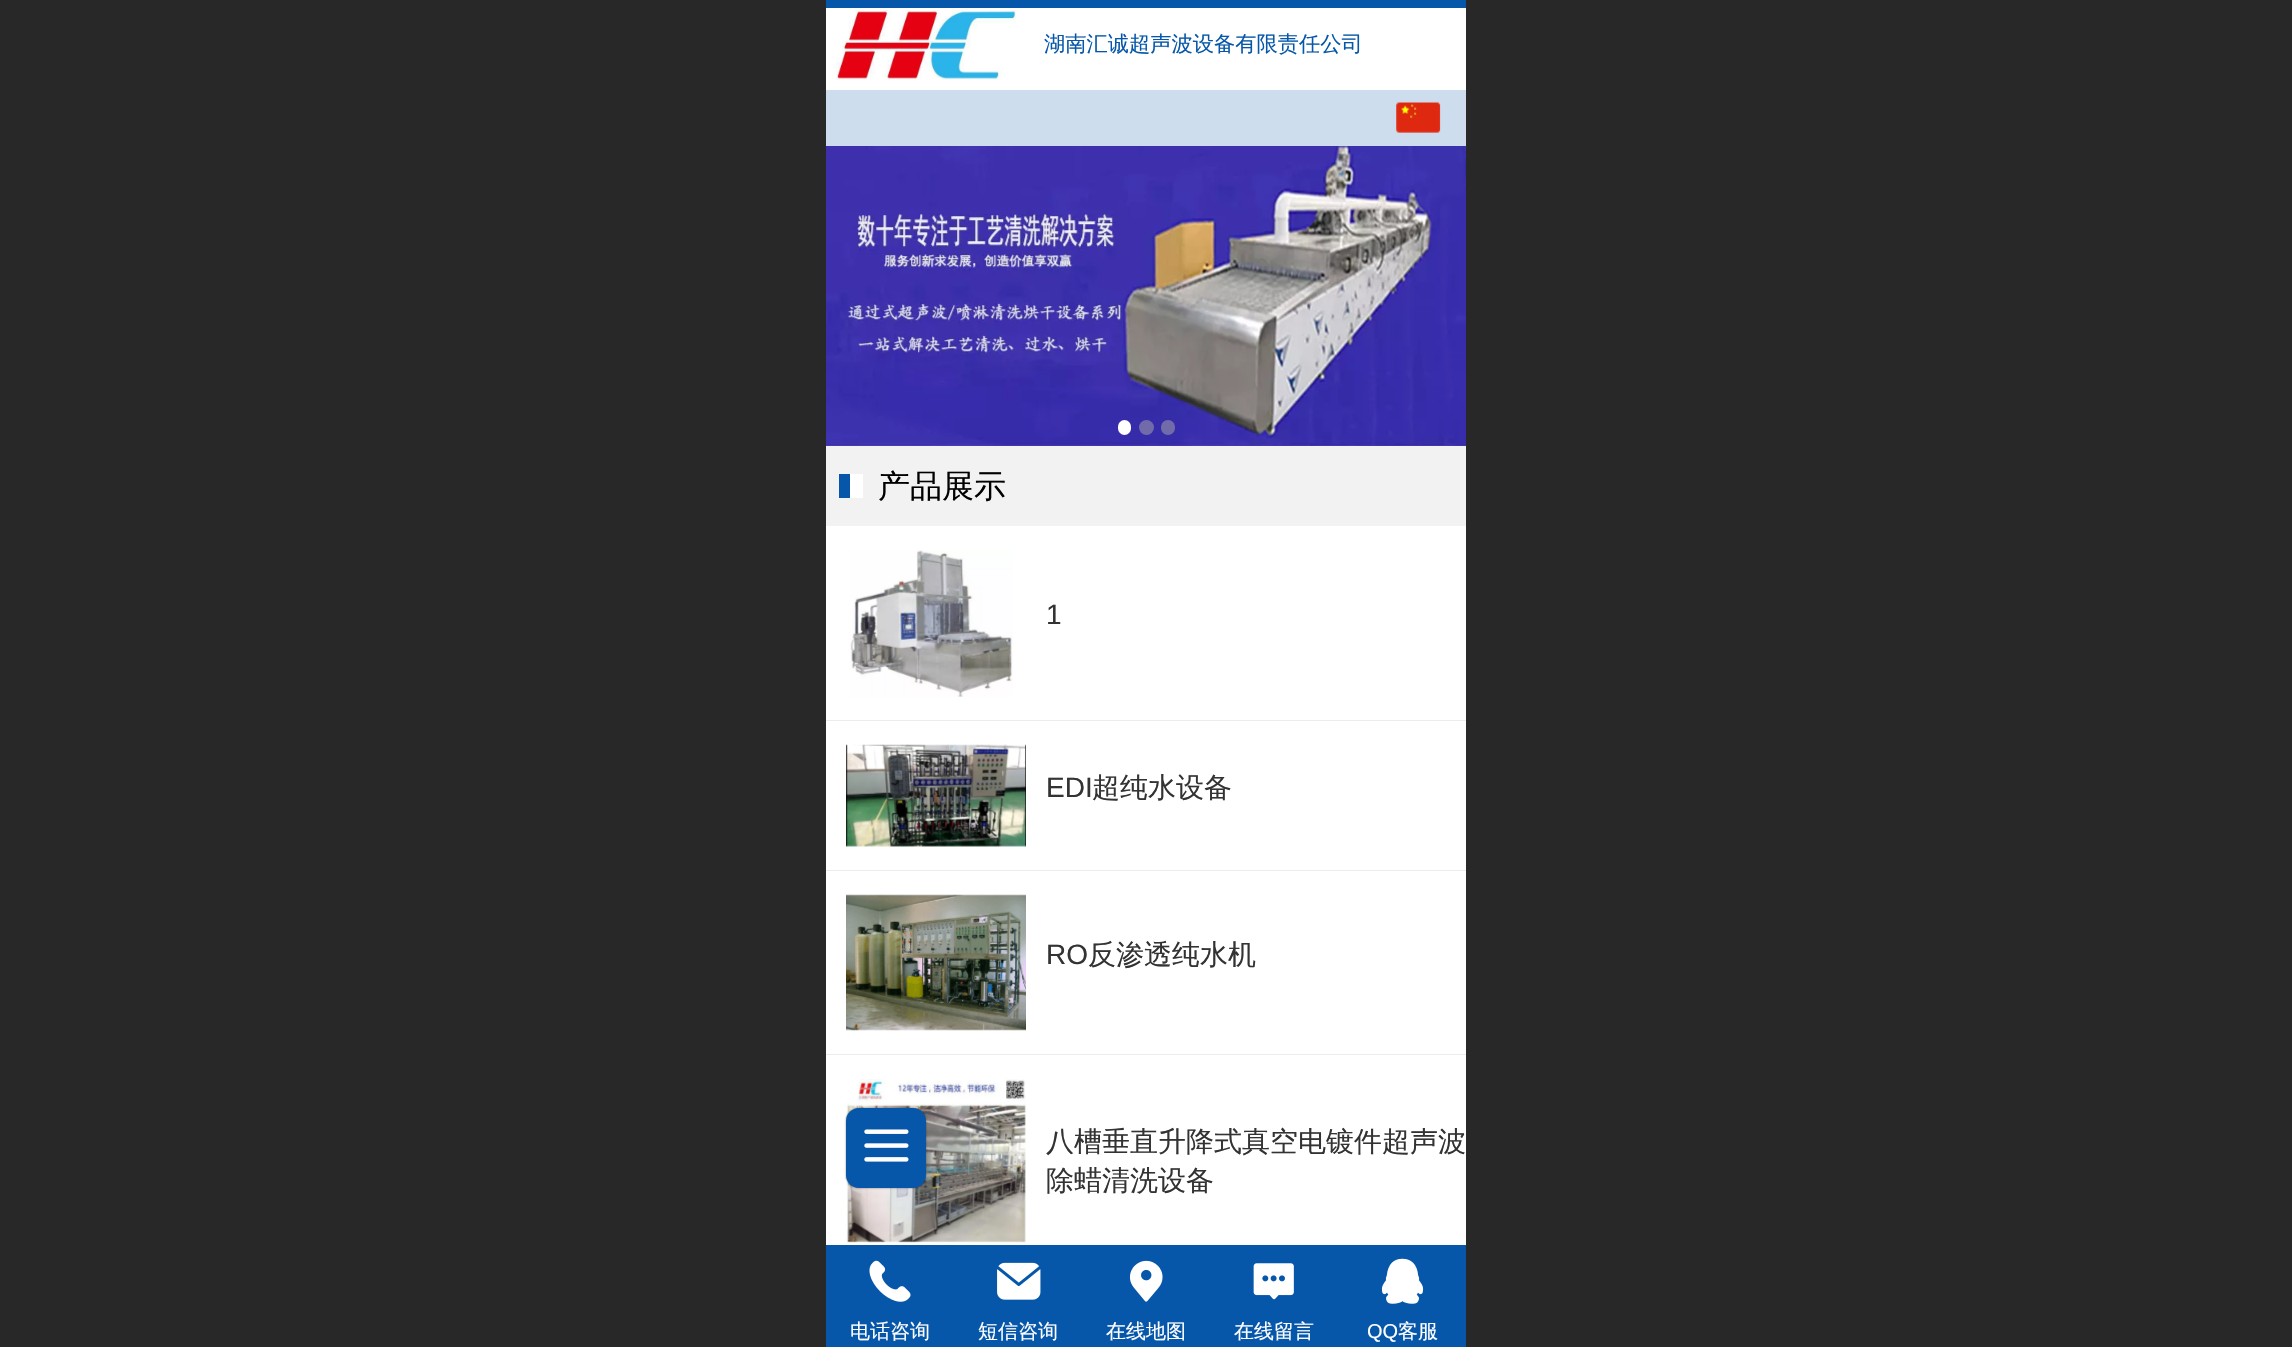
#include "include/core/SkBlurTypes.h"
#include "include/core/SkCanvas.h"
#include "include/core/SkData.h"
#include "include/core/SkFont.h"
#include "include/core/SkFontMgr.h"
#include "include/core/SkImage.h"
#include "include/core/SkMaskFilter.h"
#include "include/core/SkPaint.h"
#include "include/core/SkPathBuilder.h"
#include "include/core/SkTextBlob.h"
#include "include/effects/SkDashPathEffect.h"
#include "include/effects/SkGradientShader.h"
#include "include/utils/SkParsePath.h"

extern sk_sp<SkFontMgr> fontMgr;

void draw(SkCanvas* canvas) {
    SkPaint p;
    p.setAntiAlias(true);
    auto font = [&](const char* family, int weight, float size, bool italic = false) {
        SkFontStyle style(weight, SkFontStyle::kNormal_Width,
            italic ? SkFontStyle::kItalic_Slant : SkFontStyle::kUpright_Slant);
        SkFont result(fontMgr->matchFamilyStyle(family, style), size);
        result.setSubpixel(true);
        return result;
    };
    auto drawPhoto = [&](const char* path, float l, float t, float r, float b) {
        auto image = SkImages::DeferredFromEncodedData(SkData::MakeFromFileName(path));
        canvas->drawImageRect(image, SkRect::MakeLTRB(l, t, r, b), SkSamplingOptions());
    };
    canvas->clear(0xFFFFFFFF);
    p.setColor(0xFF282828);
    canvas->drawRect(SkRect::MakeLTRB(0, 0, 826, 1347), p);
    p.setColor(0xFF0657A9);
    canvas->drawRect(SkRect::MakeLTRB(826, 0, 1466, 8), p);
    drawPhoto("media/1.png", 836, 10, 1016, 80);
    auto font1 = font("WenQuanYi Zen Hei", 500, 21.25f);
    canvas->drawString("湖南汇诚超声波设备有限责任公司", 1044, 51, font1, p);
    drawPhoto("media/8.png", 846, 1079, 1026, 1243);
    p.setColor(0x80000000);
    p.setMaskFilter(SkMaskFilter::MakeBlur(kNormal_SkBlurStyle, 1));
    canvas->drawRoundRect(SkRect::MakeLTRB(846, 1108, 926, 1188), 13, 13, p);
    p.setMaskFilter(nullptr);
    p.setColor(0xFF0657A9);
    canvas->drawRoundRect(SkRect::MakeLTRB(846, 1108, 926, 1188), 13, 13, p);
    drawPhoto("media/2.png", 864, 1129, 909, 1162);
    p.setColor(0xFFCDDDEE);
    canvas->drawRect(SkRect::MakeLTRB(826, 90, 1466, 146), p);
    drawPhoto("media/3.png", 1396, 101, 1441, 133);
    drawPhoto("media/4.png", 826, 146, 1466, 446);
    p.setColor(0xFFFFFFFF);
    canvas->drawRoundRect(SkRect::MakeLTRB(1118, 420, 1131, 435), 6.5f, 6.5f, p);
    p.setColor(0xFF716BAA);
    canvas->drawCircle(1146.5f, 427.5f, 7.5f, p);
    canvas->drawRoundRect(SkRect::MakeLTRB(1161, 420, 1175, 435), 7, 7, p);
    {
        const struct { float l, t, r, b; SkColor color; } items[] = {
            {826, 446, 1466, 526, 0xFFF2F2F2},
            {839, 474, 850, 498, 0xFF0657A9},
            {850, 474, 863, 498, 0xFFFFFFFF},
        };
        for (auto [l, t, r, b, color] : items) {
            p.setColor(color);
            canvas->drawRect(SkRect::MakeLTRB(l, t, r, b), p);
        }
    }
    auto font2 = font("WenQuanYi Zen Hei", 500, 32);
    p.setColor(0xFF000000);
    canvas->drawString("产品展示", 878, 497, font2, p);
    drawPhoto("media/5.png", 850, 550, 1013, 697);
    auto font3 = font("Liberation Sans", 400, 28);
    p.setColor(0xFF333333);
    canvas->drawString("1", 1046, 624, font3, p);
    p.setColor(0xFFECECEC);
    canvas->drawRect(SkRect::MakeLTRB(826, 720, 1466, 721), p);
    drawPhoto("media/6.png", 846, 744, 1026, 847);
    p.setColor(0xFF333333);
    canvas->drawString("EDI", 1046, 797, font3, p);
    auto font4 = font("WenQuanYi Zen Hei", 500, 28);
    canvas->drawString("超纯水设备", 1092, 797, font4, p);
    p.setColor(0xFFECECEC);
    canvas->drawRect(SkRect::MakeLTRB(826, 870, 1466, 871), p);
    drawPhoto("media/7.png", 846, 894, 1026, 1031);
    p.setColor(0xFF333333);
    canvas->drawString("RO", 1046, 964, font3, p);
    canvas->drawString("反渗透纯水机", 1088, 964, font4, p);
    p.setColor(0xFFECECEC);
    canvas->drawRect(SkRect::MakeLTRB(826, 1054, 1466, 1055), p);
    p.setColor(0xFF333333);
    canvas->drawString("八槽垂直升降式真空电镀件超声波", 1046, 1151, font4, p);
    canvas->drawString("除蜡清洗设备", 1046, 1190, font4, p);
    p.setColor(0xFF0657A9);
    canvas->drawRect(SkRect::MakeLTRB(826, 1245, 1466, 1347), p);
    drawPhoto("media/9.png", 869, 1260, 911, 1302);
    auto font5 = font("WenQuanYi Zen Hei", 500, 20);
    p.setColor(0xFFFFFFFF);
    canvas->drawString("电话咨询", 850, 1338, font5, p);
    drawPhoto("media/10.png", 997, 1262, 1041, 1300);
    canvas->drawString("短信咨询", 978, 1338, font5, p);
    drawPhoto("media/11.png", 1129, 1260, 1163, 1302);
    canvas->drawString("在线地图", 1106, 1338, font5, p);
    drawPhoto("media/12.png", 1253, 1263, 1294, 1300);
    canvas->drawString("在线留言", 1234, 1338, font5, p);
    drawPhoto("media/13.png", 1381, 1258, 1424, 1304);
    auto font6 = font("Liberation Sans", 400, 20);
    canvas->drawString("QQ", 1367, 1338, font6, p);
    canvas->drawString("客服", 1398, 1338, font5, p);
    p.setColor(0xFF282828);
    canvas->drawRect(SkRect::MakeLTRB(1466, 0, 2292, 1347), p);
}
